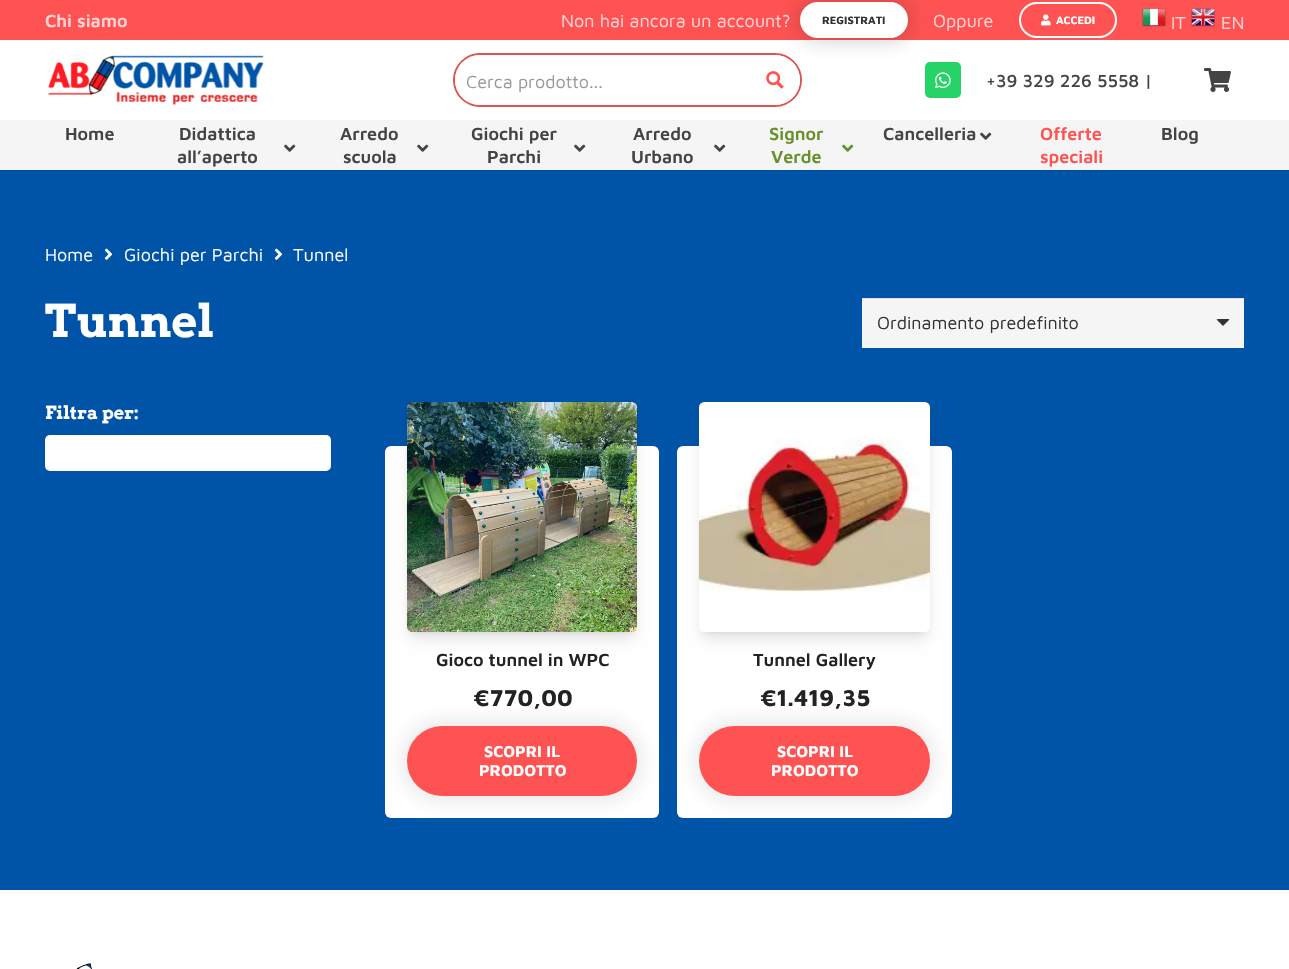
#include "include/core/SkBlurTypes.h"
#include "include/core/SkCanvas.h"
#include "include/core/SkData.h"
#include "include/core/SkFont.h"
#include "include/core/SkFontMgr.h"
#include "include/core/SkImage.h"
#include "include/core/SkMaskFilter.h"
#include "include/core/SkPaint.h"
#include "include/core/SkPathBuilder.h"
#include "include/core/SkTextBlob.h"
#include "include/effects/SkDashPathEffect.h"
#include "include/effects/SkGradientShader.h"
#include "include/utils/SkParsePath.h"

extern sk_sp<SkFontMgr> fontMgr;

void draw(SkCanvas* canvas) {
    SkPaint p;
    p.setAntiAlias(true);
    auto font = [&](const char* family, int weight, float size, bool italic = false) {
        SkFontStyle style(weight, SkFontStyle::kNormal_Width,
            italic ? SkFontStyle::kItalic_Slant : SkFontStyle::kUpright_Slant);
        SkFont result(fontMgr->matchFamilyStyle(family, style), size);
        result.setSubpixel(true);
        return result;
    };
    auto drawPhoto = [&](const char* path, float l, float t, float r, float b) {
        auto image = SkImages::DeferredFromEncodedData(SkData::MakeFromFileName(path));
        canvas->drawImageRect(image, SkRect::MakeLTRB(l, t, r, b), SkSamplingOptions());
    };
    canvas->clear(0xFFFFFFFF);
    p.setColor(0xFFFF5252);
    canvas->drawRect(SkRect::MakeLTRB(0, 0, 1289, 40), p);
    auto font1 = font("Maven Pro", 600, 18);
    p.setColor(0xFFFFD4D4);
    canvas->drawString("Chi siamo", 45, 27, font1, p);
    auto font2 = font("Maven Pro", 400, 18);
    canvas->drawString("Non hai ancora un account?", 561, 27, font2, p);
    p.setColor(0x331A1A1A);
    p.setMaskFilter(SkMaskFilter::MakeBlur(kNormal_SkBlurStyle, 10));
    canvas->drawRoundRect(SkRect::MakeLTRB(797, -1, 911, 41), 21, 21, p);
    p.setMaskFilter(nullptr);
    p.setColor(0xFFFFFFFF);
    canvas->drawRoundRect(SkRect::MakeLTRB(800, 2, 908, 38), 18, 18, p);
    auto font3 = font("Maven Pro", 700, 11);
    p.setColor(0xFF333333);
    canvas->drawString("REGISTRATI", 822, 24, font3, p);
    p.setColor(0xFFFFD4D4);
    canvas->drawString("Oppure", 933, 27, font2, p);
    drawPhoto("media/1.png", 1041, 14, 1051, 26);
    p.setStyle(SkPaint::kStroke_Style);
    p.setStrokeWidth(2);
    p.setColor(0xFFFFFFFF);
    canvas->drawRoundRect(SkRect::MakeLTRB(1020, 3, 1116, 37), 17, 17, p);
    p.setStyle(SkPaint::kFill_Style);
    canvas->drawString("ACCEDI", 1056, 24, font3, p);
    drawPhoto("media/2.png", 1142, 8, 1166, 27);
    p.setColor(0xFFFFD4D4);
    canvas->drawString("IT", 1171, 29, font2, p);
    drawPhoto("media/3.png", 1191, 8, 1215, 27);
    canvas->drawString("EN", 1221, 29, font2, p);
    drawPhoto("media/4.png", 48, 55, 264, 105);
    p.setStyle(SkPaint::kStroke_Style);
    p.setColor(0xFFE15252);
    canvas->drawRoundRect(SkRect::MakeLTRB(454, 54, 801, 106), 26, 26, p);
    p.setStyle(SkPaint::kFill_Style);
    p.setColor(0xFFFFFFFF);
    canvas->drawRoundRect(SkRect::MakeLTRB(455, 55, 800, 105), 25, 25, p);
    p.setColor(0xFF999999);
    canvas->drawString("Cerca prodotto...", 466, 88, font2, p);
    drawPhoto("media/5.png", 766, 71, 784, 89);
    p.setColor(0xFF25D366);
    canvas->drawRoundRect(SkRect::MakeLTRB(925, 62, 961, 98), 5, 5, p);
    drawPhoto("media/6.png", 935, 72, 951, 89);
    auto font4 = font("Maven Pro", 500, 18);
    p.setColor(0xFF444444);
    canvas->drawString("+39 329 226 5558 |", 986, 87, font4, p);
    drawPhoto("media/7.png", 1204, 68, 1231, 92);
    p.setColor(0xFF004D9A);
    canvas->drawRect(SkRect::MakeLTRB(0, 170, 1289, 171), p);
    p.setColor(0xFFF5F5F5);
    canvas->drawRect(SkRect::MakeLTRB(0, 120, 1289, 170), p);
    p.setColor(0xFF444444);
    {
        const struct { const char* s; float x, y; } items[] = {
            {"Home", 65, 140},
            {"Didattica", 179, 140},
            {"all’aperto", 177, 163},
        };
        for (auto [s, x, y] : items) {
            canvas->drawString(s, x, y, font1, p);
        }
    }
    drawPhoto("media/8.png", 284, 144, 296, 152);
    canvas->drawString("Arredo", 340, 140, font1, p);
    canvas->drawString("scuola", 343, 163, font1, p);
    drawPhoto("media/8.png", 417, 144, 429, 152);
    canvas->drawString("Giochi per", 471, 140, font1, p);
    canvas->drawString("Parchi", 487, 163, font1, p);
    drawPhoto("media/8.png", 574, 144, 586, 152);
    canvas->drawString("Arredo", 633, 140, font1, p);
    canvas->drawString("Urbano", 631, 163, font1, p);
    drawPhoto("media/8.png", 714, 144, 726, 152);
    p.setColor(0xFF68902B);
    canvas->drawString("Signor", 769, 140, font1, p);
    canvas->drawString("Verde", 771, 163, font1, p);
    drawPhoto("media/9.png", 842, 144, 854, 152);
    p.setColor(0xFF444444);
    canvas->drawString("Cancelleria", 883, 140, font1, p);
    drawPhoto("media/8.png", 980, 132, 992, 140);
    p.setColor(0xFFFF5252);
    canvas->drawString("Offerte", 1040, 140, font1, p);
    canvas->drawString("speciali", 1040, 163, font1, p);
    p.setColor(0xFF444444);
    canvas->drawString("Blog", 1161, 140, font1, p);
    p.setColor(0xFF0054A7);
    canvas->drawRect(SkRect::MakeLTRB(0, 171, 1289, 890), p);
    p.setColor(0xFFFFFFFF);
    canvas->drawString("Home", 45, 261, font2, p);
    drawPhoto("media/10.png", 104, 248, 113, 260);
    canvas->drawString("Giochi per Parchi", 124, 261, font2, p);
    drawPhoto("media/10.png", 274, 248, 283, 260);
    canvas->drawString("Tunnel", 293, 261, font2, p);
    auto font5 = font("Arvo", 700, 45);
    canvas->drawString("Tunnel", 45, 337, font5, p);
    p.setColor(0xFFF5F5F5);
    canvas->drawRect(SkRect::MakeLTRB(862, 299, 1244, 348), p);
    p.setColor(0xFFE1E1E1);
    canvas->drawRect(SkRect::MakeLTRB(862, 298, 1244, 299), p);
    p.setColor(0xFF333333);
    canvas->drawString("Ordinamento predefinito", 877, 329, font2, p);
    canvas->drawPath(SkPathBuilder().moveTo(1218, 319).lineTo(1216.5f, 319.5f).lineTo(1223, 326).lineTo(1229.5f, 319.5f).cubicTo(1229, 319, 1228, 319, 1226.5f, 319).close().detach(), p);
    auto font6 = font("Arvo", 700, 18);
    p.setColor(0xFFFFFFFF);
    canvas->drawString("Filtra per:", 45, 419, font6, p);
    canvas->drawRoundRect(SkRect::MakeLTRB(45, 435, 331, 471), 5, 5, p);
    canvas->drawRoundRect(SkRect::MakeLTRB(385, 446, 659, 818), 6, 6, p);
    p.setColor(0x1A000000);
    p.setMaskFilter(SkMaskFilter::MakeBlur(kNormal_SkBlurStyle, 7.5f));
    canvas->drawRoundRect(SkRect::MakeLTRB(410, 415, 634, 639), 2.5f, 2.5f, p);
    p.setMaskFilter(nullptr);
    p.setMaskFilter(SkMaskFilter::MakeBlur(kNormal_SkBlurStyle, 3));
    canvas->drawRoundRect(SkRect::MakeLTRB(411, 410, 633, 632), 1.5f, 1.5f, p);
    p.setMaskFilter(nullptr);
    drawPhoto("media/11.png", 407, 402, 637, 632);
    p.setColor(0xFF222222);
    canvas->drawString("Gioco tunnel in WPC", 436, 666, font1, p);
    auto font7 = font("Maven Pro", 700, 23.5f);
    canvas->drawString("€770,00", 473, 706, font7, p);
    p.setColor(0x1A1A1A1A);
    p.setMaskFilter(SkMaskFilter::MakeBlur(kNormal_SkBlurStyle, 10));
    canvas->drawRoundRect(SkRect::MakeLTRB(402, 721, 642, 801), 40, 40, p);
    p.setMaskFilter(nullptr);
    p.setColor(0xFFFF5252);
    canvas->drawRoundRect(SkRect::MakeLTRB(407, 726, 637, 796), 35, 35, p);
    auto font8 = font("Maven Pro", 700, 16);
    p.setColor(0xFFFFFFFF);
    canvas->drawString("SCOPRI IL", 484, 757, font8, p);
    canvas->drawString("PRODOTTO", 479, 776, font8, p);
    canvas->drawRoundRect(SkRect::MakeLTRB(677, 446, 952, 818), 6, 6, p);
    p.setColor(0x1A000000);
    p.setMaskFilter(SkMaskFilter::MakeBlur(kNormal_SkBlurStyle, 7.5f));
    canvas->drawRoundRect(SkRect::MakeLTRB(702, 415, 927, 639), 2.5f, 2.5f, p);
    p.setMaskFilter(nullptr);
    p.setMaskFilter(SkMaskFilter::MakeBlur(kNormal_SkBlurStyle, 3));
    canvas->drawRoundRect(SkRect::MakeLTRB(703, 410, 926, 632), 1.5f, 1.5f, p);
    p.setMaskFilter(nullptr);
    drawPhoto("media/12.png", 699, 402, 930, 632);
    p.setColor(0xFF222222);
    canvas->drawString("Tunnel Gallery", 753, 666, font1, p);
    canvas->drawString("€1.419,35", 760, 706, font7, p);
    p.setColor(0x1A1A1A1A);
    p.setMaskFilter(SkMaskFilter::MakeBlur(kNormal_SkBlurStyle, 10));
    canvas->drawRoundRect(SkRect::MakeLTRB(694, 721, 935, 801), 40, 40, p);
    p.setMaskFilter(nullptr);
    p.setColor(0xFFFF5252);
    canvas->drawRoundRect(SkRect::MakeLTRB(699, 726, 930, 796), 35, 35, p);
    p.setColor(0xFFFFFFFF);
    canvas->drawString("SCOPRI IL", 777, 757, font8, p);
    canvas->drawString("PRODOTTO", 771, 776, font8, p);
    drawPhoto("media/13.png", 76, 963, 92, 969);
}
